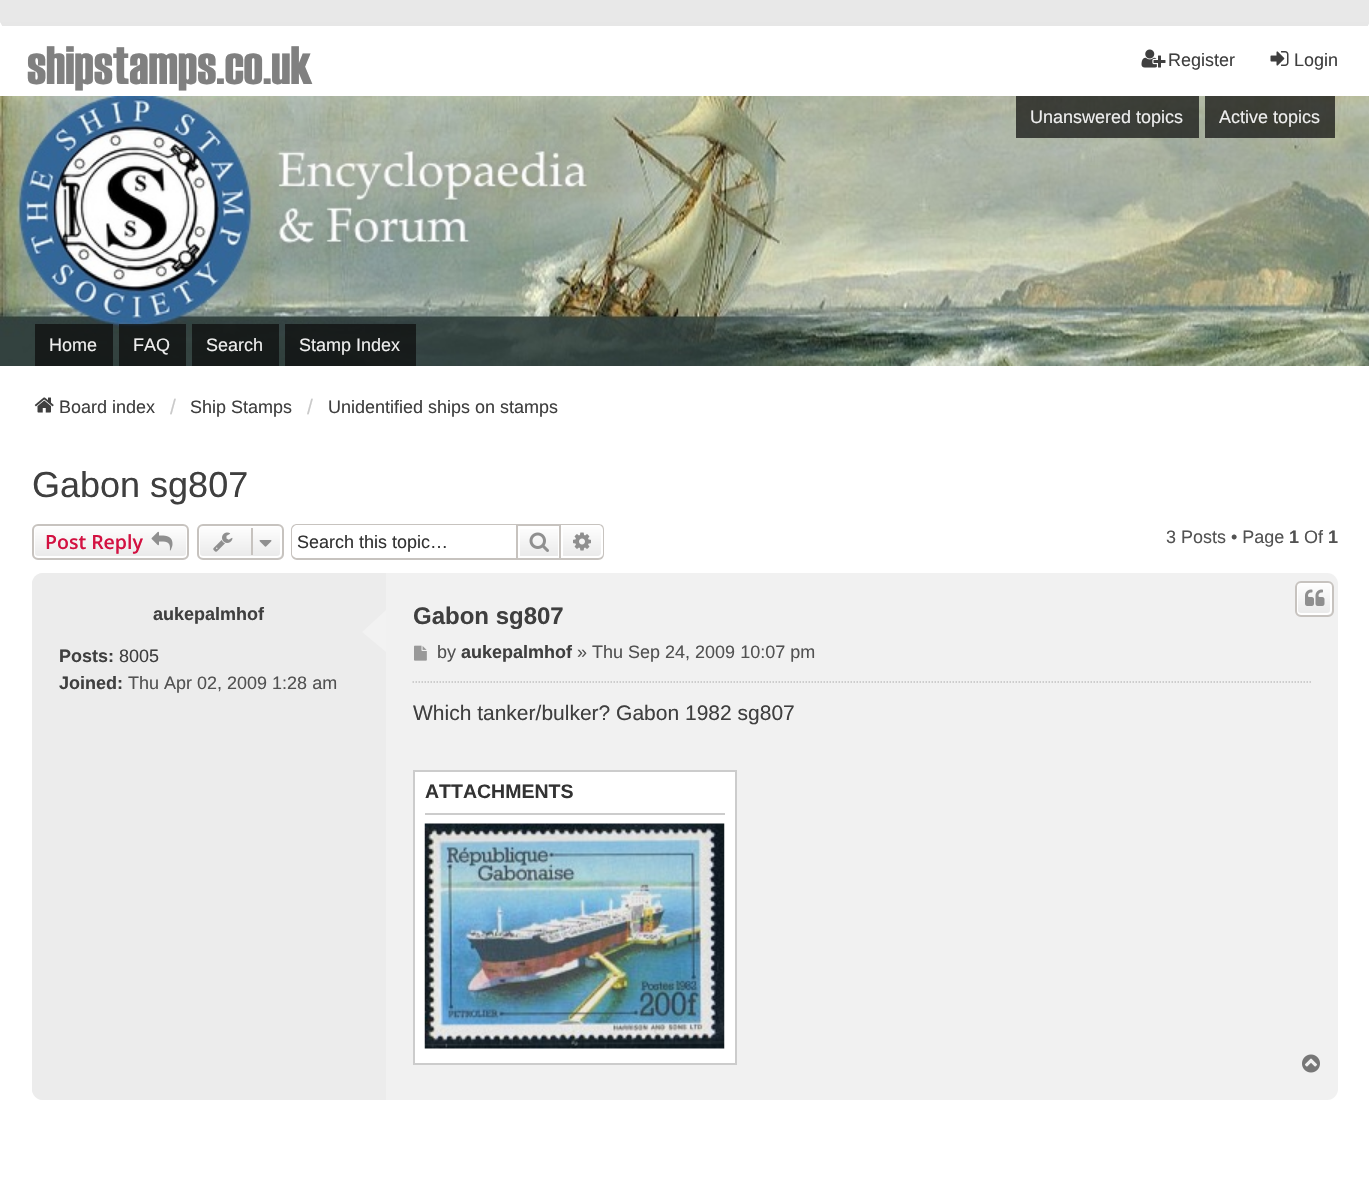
#include "include/core/SkBlurTypes.h"
#include "include/core/SkCanvas.h"
#include "include/core/SkData.h"
#include "include/core/SkFont.h"
#include "include/core/SkFontMgr.h"
#include "include/core/SkImage.h"
#include "include/core/SkMaskFilter.h"
#include "include/core/SkPaint.h"
#include "include/core/SkPathBuilder.h"
#include "include/core/SkTextBlob.h"
#include "include/effects/SkDashPathEffect.h"
#include "include/effects/SkGradientShader.h"
#include "include/utils/SkParsePath.h"

extern sk_sp<SkFontMgr> fontMgr;

void draw(SkCanvas* canvas) {
    SkPaint p;
    p.setAntiAlias(true);
    auto font = [&](const char* family, int weight, float size, bool italic = false) {
        SkFontStyle style(weight, SkFontStyle::kNormal_Width,
            italic ? SkFontStyle::kItalic_Slant : SkFontStyle::kUpright_Slant);
        SkFont result(fontMgr->matchFamilyStyle(family, style), size);
        result.setSubpixel(true);
        return result;
    };
    auto drawPhoto = [&](const char* path, float l, float t, float r, float b) {
        auto image = SkImages::DeferredFromEncodedData(SkData::MakeFromFileName(path));
        canvas->drawImageRect(image, SkRect::MakeLTRB(l, t, r, b), SkSamplingOptions());
    };
    canvas->clear(0xFFE8E8E8);
    p.setColor(0xFFFFFFFF);
    canvas->drawRect(SkRect::MakeLTRB(0, 366, 1369, 1189), p);
    canvas->drawRect(SkRect::MakeLTRB(0, 23, 1369, 96), p);
    auto font1 = font("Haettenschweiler", 500, 54);
    p.setColor(0xFF808080);
    canvas->drawString("shipstamps.co.uk", 27, 84, font1, p);
    drawPhoto("media/1.png", 34, 397, 54, 413);
    auto font2 = font("Liberation Sans", 400, 18);
    p.setColor(0xFF3F3F3F);
    canvas->drawString("Board index", 59, 413, font2, p);
    auto font3 = font("Liberation Sans", 400, 21);
    p.setColor(0xFFCACACA);
    canvas->drawString("/", 170, 414, font3, p);
    p.setColor(0xFF3F3F3F);
    canvas->drawString("Ship Stamps", 190, 413, font2, p);
    p.setColor(0xFFCACACA);
    canvas->drawString("/", 307, 414, font3, p);
    p.setColor(0xFF3F3F3F);
    canvas->drawString("Unidentified ships on stamps", 328, 413, font2, p);
    auto font4 = font("Liberation Sans", 400, 36);
    canvas->drawString("Gabon sg807", 32, 497, font4, p);
    canvas->save();
    canvas->clipPath(SkPathBuilder().moveTo(38, 524).lineTo(183, 524).cubicTo(186.5f, 524, 189, 526.5f, 189, 530).lineTo(189, 554).cubicTo(189, 557.5f, 186.5f, 560, 183, 560).lineTo(38, 560).cubicTo(34.5f, 560, 32, 557.5f, 32, 554).lineTo(32, 530).cubicTo(32, 526.5f, 34.5f, 524, 38, 524).close().detach(), true);
    {
        const SkColor colors[] = {0xFFFFFFFF, 0xFFE9E9E9};
        const float stops[] = {0, 1};
        const SkPoint ends[] = {{110, 525}, {110, 558}};
        p.setShader(SkGradientShader::MakeLinear(ends, colors, stops, 2, SkTileMode::kClamp));
        p.setAlpha(255);
    }
    canvas->drawRect(SkRect::MakeLTRB(32, 525, 189, 558), p);
    canvas->restore();
    p.setStyle(SkPaint::kStroke_Style);
    p.setStrokeWidth(2);
    p.setShader(nullptr);
    p.setColor(0xFFFFFFFF);
    canvas->drawRoundRect(SkRect::MakeLTRB(34, 526, 187, 557), 4, 4, p);
    p.setColor(0xFFC7C3BF);
    canvas->drawRoundRect(SkRect::MakeLTRB(33, 525, 188, 559), 5, 5, p);
    auto font5 = font("Open Sans", 600, 19.5f);
    p.setStyle(SkPaint::kFill_Style);
    p.setColor(0xFFD31141);
    canvas->drawString("Post Reply", 45, 549, font5, p);
    drawPhoto("media/2.png", 151, 531, 173, 551);
    canvas->save();
    canvas->clipPath(SkPathBuilder().moveTo(203, 524).lineTo(278, 524).cubicTo(281.5f, 524, 284, 526.5f, 284, 530).lineTo(284, 554).cubicTo(284, 557.5f, 281.5f, 560, 278, 560).lineTo(203, 560).cubicTo(199.5f, 560, 197, 557.5f, 197, 554).lineTo(197, 530).cubicTo(197, 526.5f, 199.5f, 524, 203, 524).close().detach(), true);
    {
        const SkColor colors[] = {0xFFFFFFFF, 0xFFE9E9E9};
        const float stops[] = {0, 1};
        const SkPoint ends[] = {{240, 525}, {240, 558}};
        p.setShader(SkGradientShader::MakeLinear(ends, colors, stops, 2, SkTileMode::kClamp));
        p.setAlpha(255);
    }
    canvas->drawRect(SkRect::MakeLTRB(197, 525, 284, 558), p);
    canvas->restore();
    p.setStyle(SkPaint::kStroke_Style);
    p.setShader(nullptr);
    p.setColor(0xFFFFFFFF);
    canvas->drawRoundRect(SkRect::MakeLTRB(199, 526, 281, 557), 4, 4, p);
    p.setColor(0xFFC7C3BF);
    canvas->drawRoundRect(SkRect::MakeLTRB(198, 525, 283, 559), 5, 5, p);
    drawPhoto("media/3.png", 213, 532, 233, 552);
    p.setStyle(SkPaint::kFill_Style);
    canvas->drawRect(SkRect::MakeLTRB(251, 528, 253, 555), p);
    drawPhoto("media/4.png", 259, 540, 272, 547);
    canvas->drawPath(SkPathBuilder(SkPathFillType::kEvenOdd).moveTo(297, 524).lineTo(516, 524).lineTo(516, 560).lineTo(297, 560).cubicTo(294, 560, 291, 557, 291, 554).lineTo(291, 530).cubicTo(291, 526, 294, 524, 297, 524).close().moveTo(297, 525).lineTo(516, 525).lineTo(516, 558).lineTo(297, 558).cubicTo(295, 558, 292, 556, 292, 554).lineTo(292, 530).cubicTo(292, 527, 295, 525, 297, 525).close().detach(), p);
    p.setColor(0xFF333333);
    canvas->drawString("Search this topic…", 297, 548, font2, p);
    {
        const SkColor colors[] = {0xFFFFFFFF, 0xFFE9E9E9};
        const float stops[] = {0, 1};
        const SkPoint ends[] = {{539, 525}, {539, 558}};
        p.setShader(SkGradientShader::MakeLinear(ends, colors, stops, 2, SkTileMode::kClamp));
        p.setAlpha(255);
    }
    canvas->drawRect(SkRect::MakeLTRB(520, 529, 558, 556), p);
    p.setStyle(SkPaint::kStroke_Style);
    p.setShader(nullptr);
    p.setColor(0xFFC7C3BF);
    canvas->drawRect(SkRect::MakeLTRB(517, 525, 560, 559), p);
    drawPhoto("media/5.png", 529, 532, 549, 552);
    p.setStyle(SkPaint::kFill_Style);
    {
        const SkColor colors[] = {0xFFFFFFFF, 0xFFE9E9E9};
        const float stops[] = {0, 1};
        const SkPoint ends[] = {{582, 525}, {582, 558}};
        p.setShader(SkGradientShader::MakeLinear(ends, colors, stops, 2, SkTileMode::kClamp));
        p.setAlpha(255);
    }
    canvas->drawPath(SkPathBuilder().moveTo(562, 526).lineTo(598, 526).cubicTo(600, 526, 602, 528, 602, 530).lineTo(602, 553).cubicTo(602, 555, 600, 557, 598, 557).lineTo(562, 557).close().detach(), p);
    p.setStyle(SkPaint::kStroke_Style);
    p.setShader(nullptr);
    p.setColor(0xFFFFFFFF);
    canvas->drawPath(SkPathBuilder().moveTo(562, 526).lineTo(598, 526).cubicTo(600, 526, 602, 528, 602, 530).lineTo(602, 553).cubicTo(602, 555, 600, 557, 598, 557).lineTo(562, 557).close().detach(), p);
    p.setStyle(SkPaint::kFill_Style);
    p.setColor(0xFFC7C3BF);
    canvas->drawPath(SkPathBuilder(SkPathFillType::kEvenOdd).moveTo(561, 524).lineTo(598, 524).cubicTo(602, 524, 604, 526, 604, 530).lineTo(604, 554).cubicTo(604, 557, 602, 560, 598, 560).lineTo(561, 560).close().moveTo(561, 525).lineTo(598, 525).cubicTo(601, 525, 603, 527, 603, 530).lineTo(603, 554).cubicTo(603, 556, 601, 558, 598, 558).lineTo(561, 558).close().detach(), p);
    drawPhoto("media/6.png", 573, 532, 591, 551);
    p.setColor(0xFF525252);
    canvas->drawString("3 Posts • Page", 1166, 543, font2, p);
    auto font6 = font("Liberation Sans", 700, 18);
    canvas->drawString("1", 1289, 543, font6, p);
    canvas->drawString("Of", 1304, 543, font2, p);
    canvas->drawString("1", 1328, 543, font6, p);
    p.setColor(0xFFF1F1F1);
    canvas->drawRoundRect(SkRect::MakeLTRB(32, 573, 1338, 1100), 11, 11, p);
    p.setColor(0xFFECECEC);
    canvas->drawPath(SkPathBuilder().moveTo(43, 573).lineTo(386, 573).lineTo(386, 1100).lineTo(43, 1100).cubicTo(37, 1100, 32, 1095, 32, 1089).lineTo(32, 584).cubicTo(32, 578, 37, 573, 43, 573).close().detach(), p);
    p.setColor(0xFF3F3F3F);
    canvas->drawString("aukepalmhof", 153, 620, font6, p);
    canvas->drawString("Posts:", 59, 662, font6, p);
    canvas->drawString("8005", 119, 662, font2, p);
    canvas->drawString("Joined:", 59, 689, font6, p);
    p.setColor(0xFF525252);
    canvas->drawString("Thu Apr 02, 2009 1:28 am", 128, 689, font2, p);
    p.setColor(0xFFF2F2F2);
    canvas->drawPath(SkPathBuilder().moveTo(386, 610).lineTo(386, 652).lineTo(362, 632).close().detach(), p);
    auto font7 = font("Liberation Sans", 700, 24);
    p.setColor(0xFF3F3F3F);
    canvas->drawString("Gabon sg807", 413, 624, font7, p);
    canvas->save();
    canvas->clipPath(SkPathBuilder().moveTo(1301, 581).lineTo(1328, 581).cubicTo(1331.5f, 581, 1334, 583.5f, 1334, 587).lineTo(1334, 611).cubicTo(1334, 614.5f, 1331.5f, 617, 1328, 617).lineTo(1301, 617).cubicTo(1297.5f, 617, 1295, 614.5f, 1295, 611).lineTo(1295, 587).cubicTo(1295, 583.5f, 1297.5f, 581, 1301, 581).close().detach(), true);
    {
        const SkColor colors[] = {0xFFFFFFFF, 0xFFE9E9E9};
        const float stops[] = {0, 1};
        const SkPoint ends[] = {{1314, 582}, {1314, 615}};
        p.setShader(SkGradientShader::MakeLinear(ends, colors, stops, 2, SkTileMode::kClamp));
        p.setAlpha(255);
    }
    canvas->drawRect(SkRect::MakeLTRB(1295, 582, 1334, 615), p);
    canvas->restore();
    p.setStyle(SkPaint::kStroke_Style);
    p.setShader(nullptr);
    p.setColor(0xFFFFFFFF);
    canvas->drawRoundRect(SkRect::MakeLTRB(1297, 583, 1331, 614), 4, 4, p);
    p.setColor(0xFFC7C3BF);
    canvas->drawRoundRect(SkRect::MakeLTRB(1296, 582, 1333, 616), 5, 5, p);
    drawPhoto("media/7.png", 1305, 589, 1325, 606);
    p.setStrokeWidth(1.5f);
    p.setColor(0xFFC2C2C2);
    p.setPathEffect(SkDashPathEffect::Make({{1.5f, 1.5f}}, 0));
    canvas->drawPath(SkPathBuilder().moveTo(412.5f, 682).lineTo(1311, 682).detach(), p);
    p.setPathEffect(nullptr);
    drawPhoto("media/8.png", 414, 645, 427, 661);
    p.setStyle(SkPaint::kFill_Style);
    p.setColor(0xFF525252);
    canvas->drawString("by", 437, 658, font2, p);
    p.setColor(0xFF3F3F3F);
    canvas->drawString("aukepalmhof", 461, 658, font6, p);
    p.setColor(0xFF525252);
    canvas->drawString("» Thu Sep 24, 2009 10:07 pm", 577, 658, font2, p);
    p.setColor(0xFF3F3F3F);
    canvas->drawString("Which tanker/bulker? Gabon 1982 sg807", 413, 720, font3, p);
    p.setColor(0xFFFFFFFF);
    canvas->drawRect(SkRect::MakeLTRB(414, 771, 736, 1064), p);
    p.setStyle(SkPaint::kStroke_Style);
    p.setStrokeWidth(2);
    p.setColor(0xFFCCCCCC);
    canvas->drawRect(SkRect::MakeLTRB(414, 771, 736, 1064), p);
    auto font8 = font("Liberation Sans", 700, 19.5f);
    p.setStyle(SkPaint::kFill_Style);
    p.setColor(0xFF333333);
    canvas->drawString("ATTACHMENTS", 425, 798, font8, p);
    p.setColor(0xFFCCCCCC);
    canvas->drawRect(SkRect::MakeLTRB(425, 813, 725, 815), p);
    drawPhoto("media/9.png", 424, 823, 725, 1049);
    drawPhoto("media/10.png", 1302, 1054, 1320, 1073);
    p.setColor(0xFFE7E7E7);
    canvas->drawPath(SkPathBuilder().moveTo(0, 22).lineTo(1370, 22).lineTo(1368, 26).lineTo(2, 26).close().detach(), p);
    p.setColor(0xFFFFFFFF);
    canvas->drawPath(SkPathBuilder().moveTo(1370, 22).lineTo(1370, 96).lineTo(1368, 96).lineTo(1368, 26).close().detach(), p);
    canvas->drawPath(SkPathBuilder().moveTo(0, 96).lineTo(0, 22).lineTo(2, 26).lineTo(2, 96).close().detach(), p);
    drawPhoto("media/11.png", 1141, 49, 1166, 68);
    p.setColor(0xFF3F3F3F);
    canvas->drawString("Register", 1168, 66, font2, p);
    drawPhoto("media/12.png", 1270, 51, 1289, 66);
    canvas->drawString("Login", 1294, 66, font2, p);
    drawPhoto("media/13.png", 0, 96, 1369, 366);
    p.setColor(0xB30A0A0A);
    canvas->drawRect(SkRect::MakeLTRB(1016, 96, 1199, 138), p);
    p.setColor(0xFFEEEEEE);
    canvas->drawString("Unanswered topics", 1030, 123, font2, p);
    p.setColor(0xB30A0A0A);
    canvas->drawRect(SkRect::MakeLTRB(1205, 96, 1335, 138), p);
    p.setColor(0xFFEEEEEE);
    canvas->drawString("Active topics", 1219, 123, font2, p);
    p.setColor(0xB30A0A0A);
    canvas->drawRect(SkRect::MakeLTRB(35, 324, 113, 366), p);
    p.setColor(0xFFEEEEEE);
    canvas->drawString("Home", 49, 351, font2, p);
    p.setColor(0xB30A0A0A);
    canvas->drawRect(SkRect::MakeLTRB(119, 324, 186, 366), p);
    p.setColor(0xFFEEEEEE);
    canvas->drawString("FAQ", 133, 351, font2, p);
    p.setColor(0xB30A0A0A);
    canvas->drawRect(SkRect::MakeLTRB(192, 324, 279, 366), p);
    p.setColor(0xFFEEEEEE);
    canvas->drawString("Search", 206, 351, font2, p);
    p.setColor(0xB30A0A0A);
    canvas->drawRect(SkRect::MakeLTRB(285, 324, 416, 366), p);
    p.setColor(0xFFEEEEEE);
    canvas->drawString("Stamp Index", 299, 351, font2, p);
}
